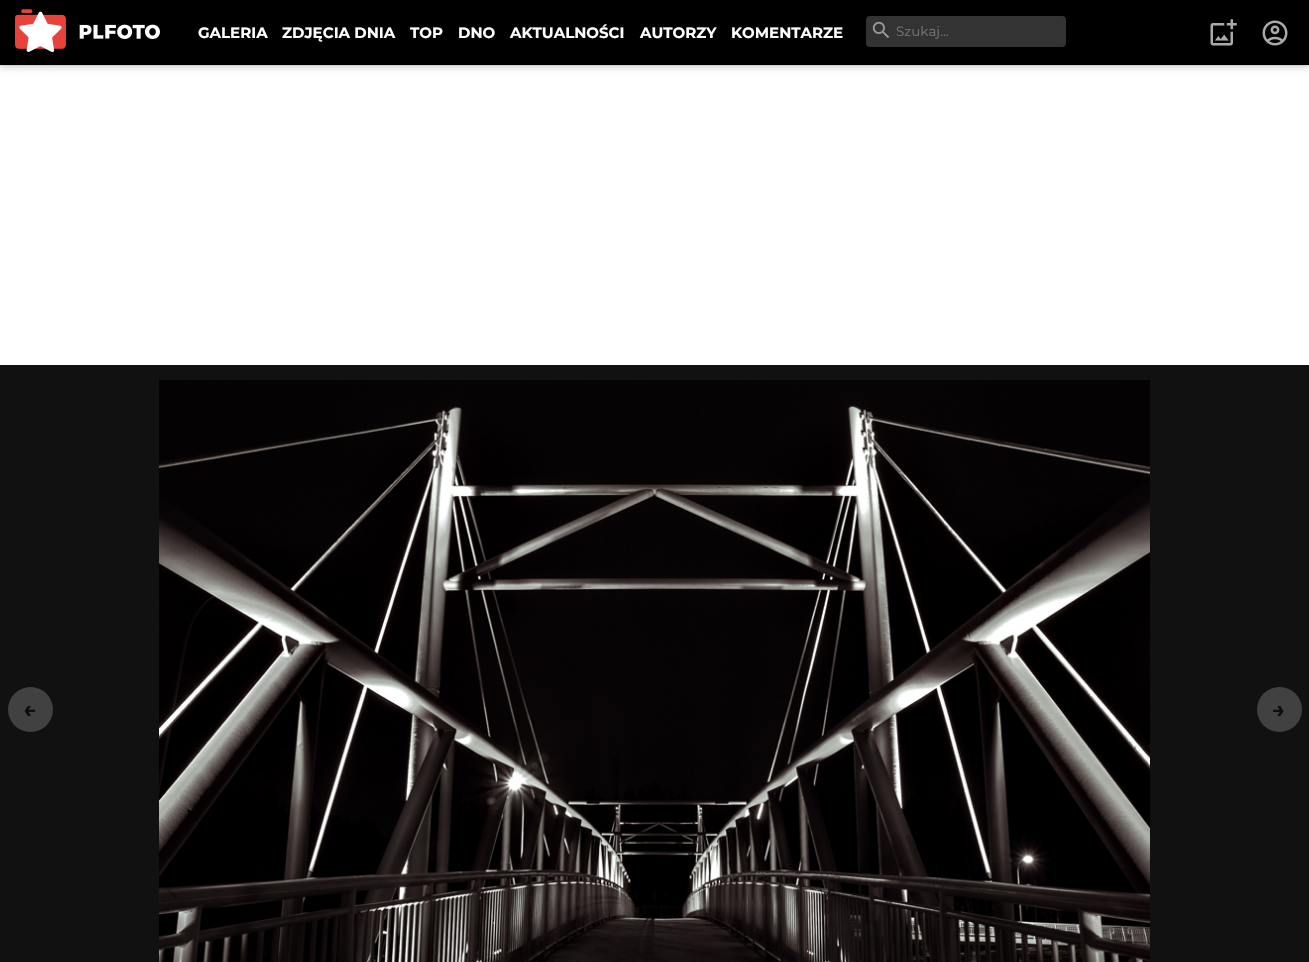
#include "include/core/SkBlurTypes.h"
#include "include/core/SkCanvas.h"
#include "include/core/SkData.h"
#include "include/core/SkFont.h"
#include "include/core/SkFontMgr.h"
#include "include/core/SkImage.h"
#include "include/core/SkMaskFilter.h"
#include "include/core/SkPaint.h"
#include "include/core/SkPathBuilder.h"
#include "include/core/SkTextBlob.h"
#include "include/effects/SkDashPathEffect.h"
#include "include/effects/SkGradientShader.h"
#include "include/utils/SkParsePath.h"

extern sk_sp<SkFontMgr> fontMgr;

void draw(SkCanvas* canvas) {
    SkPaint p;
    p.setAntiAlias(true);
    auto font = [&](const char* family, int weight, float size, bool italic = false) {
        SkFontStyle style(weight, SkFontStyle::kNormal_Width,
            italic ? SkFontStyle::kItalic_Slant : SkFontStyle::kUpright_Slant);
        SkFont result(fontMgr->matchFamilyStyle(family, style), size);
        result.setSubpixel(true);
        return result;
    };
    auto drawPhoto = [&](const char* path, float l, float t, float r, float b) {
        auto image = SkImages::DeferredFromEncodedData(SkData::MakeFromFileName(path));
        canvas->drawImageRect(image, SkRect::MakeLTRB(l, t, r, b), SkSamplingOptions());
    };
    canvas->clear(0xFFFFFFFF);
    p.setColor(0x1C000000);
    p.setMaskFilter(SkMaskFilter::MakeBlur(kNormal_SkBlurStyle, 1));
    canvas->drawRect(SkRect::MakeLTRB(0, 1, 1309, 66), p);
    p.setMaskFilter(nullptr);
    p.setColor(0x21000000);
    p.setMaskFilter(SkMaskFilter::MakeBlur(kNormal_SkBlurStyle, 3.5f));
    canvas->drawRect(SkRect::MakeLTRB(0, 3, 1309, 68), p);
    p.setMaskFilter(nullptr);
    p.setColor(0xFF000000);
    canvas->drawRect(SkRect::MakeLTRB(0, 0, 1309, 65), p);
    drawPhoto("media/1.png", 15, 9, 160, 52);
    auto font1 = font("Montserrat", 700, 15);
    p.setColor(0xFFFFFFFF);
    {
        const struct { const char* s; float x, y; } items[] = {
            {"GALERIA", 198, 38},
            {"ZDJĘCIA DNIA", 282, 38},
            {"TOP", 410, 38},
            {"DNO", 458, 38},
            {"AKTUALNOŚCI", 510, 38},
            {"AUTORZY", 640, 38},
            {"KOMENTARZE", 731, 38},
        };
        for (auto [s, x, y] : items) {
            canvas->drawString(s, x, y, font1, p);
        }
    }
    p.setColor(0xFF333333);
    canvas->drawRoundRect(SkRect::MakeLTRB(866, 16, 1066, 47), 4, 4, p);
    drawPhoto("media/2.png", 872, 21, 890, 39);
    auto font2 = font("Montserrat", 400, 13.5f);
    p.setColor(0xFF757575);
    canvas->drawString("Szukaj...", 896, 36, font2, p);
    drawPhoto("media/3.png", 1210, 19, 1237, 46);
    drawPhoto("media/4.png", 1262, 20, 1288, 46);
    p.setColor(0xFF111111);
    canvas->drawRect(SkRect::MakeLTRB(0, 365, 1309, 962), p);
    p.setColor(0xFF414141);
    canvas->drawCircle(30.5f, 709.5f, 22.5f, p);
    auto font3 = font("Montserrat", 700, 22);
    p.setColor(0xFF0E0E0E);
    canvas->drawString("←", 23, 717, font3, p);
    drawPhoto("media/5.png", 159, 380, 1150, 962);
    p.setColor(0xFF414141);
    canvas->drawCircle(1279.5f, 709.5f, 22.5f, p);
    p.setColor(0xFF0E0E0E);
    canvas->drawString("→", 1272, 717, font3, p);
}
